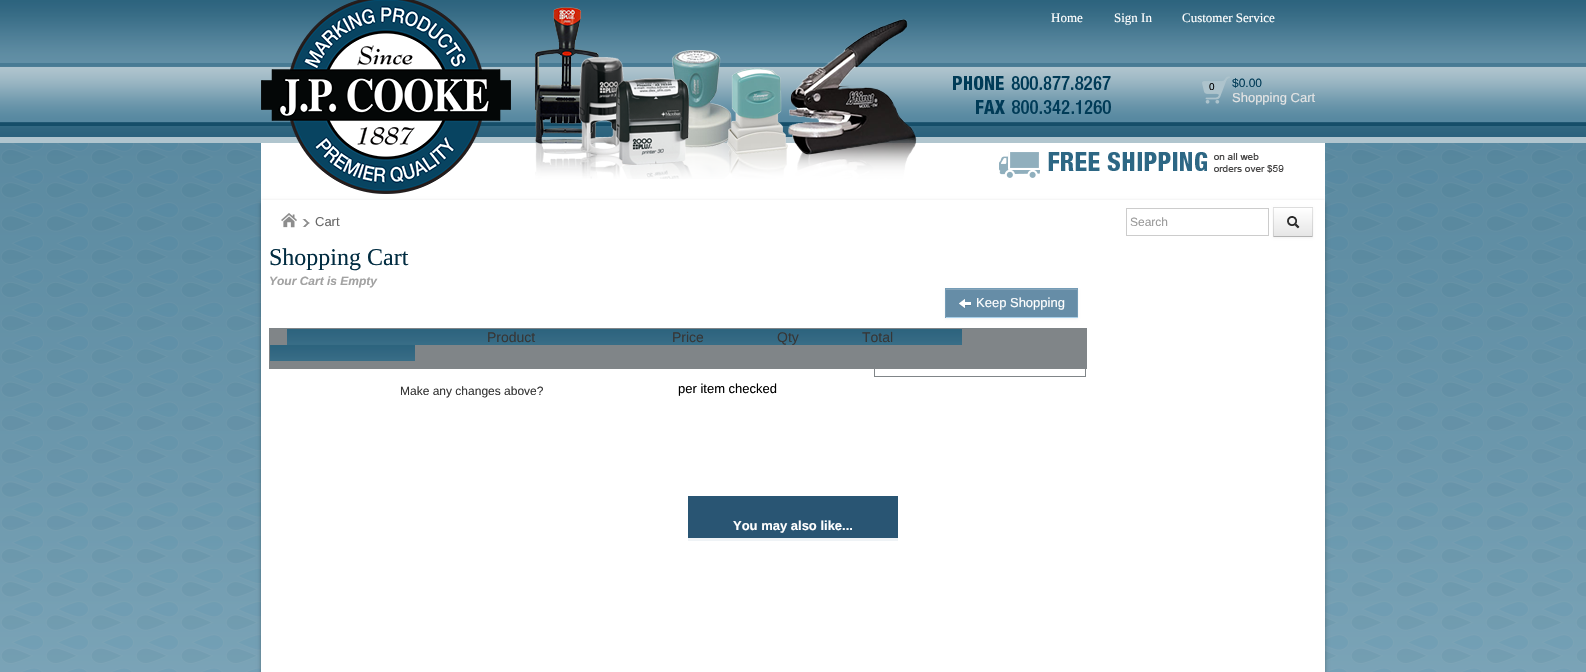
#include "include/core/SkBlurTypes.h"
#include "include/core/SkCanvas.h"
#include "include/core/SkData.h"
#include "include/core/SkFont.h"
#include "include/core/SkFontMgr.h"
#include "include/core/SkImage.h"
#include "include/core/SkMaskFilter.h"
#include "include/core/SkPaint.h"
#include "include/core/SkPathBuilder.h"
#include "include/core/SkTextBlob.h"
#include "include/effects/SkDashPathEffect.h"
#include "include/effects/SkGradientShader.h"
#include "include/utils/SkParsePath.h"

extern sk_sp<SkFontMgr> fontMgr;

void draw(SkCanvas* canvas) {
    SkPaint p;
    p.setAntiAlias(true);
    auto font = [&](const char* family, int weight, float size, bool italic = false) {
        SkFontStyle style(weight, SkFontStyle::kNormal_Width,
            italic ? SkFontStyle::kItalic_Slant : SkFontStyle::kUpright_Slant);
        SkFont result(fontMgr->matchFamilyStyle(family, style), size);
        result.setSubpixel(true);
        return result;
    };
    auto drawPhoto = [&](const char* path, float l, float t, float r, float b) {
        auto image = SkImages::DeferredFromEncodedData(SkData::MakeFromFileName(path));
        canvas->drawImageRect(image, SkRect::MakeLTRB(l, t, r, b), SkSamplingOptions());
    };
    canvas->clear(0xFFFFFFFF);
    drawPhoto("media/1.png", 0, 0, 1586, 672);
    p.setColor(0xFFFFFFFF);
    canvas->drawRect(SkRect::MakeLTRB(261, 143, 1325, 672), p);
    drawPhoto("media/2.png", 261, 0, 1325, 143);
    drawPhoto("media/3.png", 261, 0, 511, 194);
    drawPhoto("media/4.png", 535, 7, 1111, 179);
    drawPhoto("media/5.png", 999, 151, 1284, 178);
    auto font1 = font("Liberation Serif", 400, 13);
    {
        const struct { const char* s; float x, y; } items[] = {
            {"Home", 1051, 22},
            {"Sign In", 1114, 22},
            {"Customer Service", 1182, 22},
        };
        for (auto [s, x, y] : items) {
            canvas->drawString(s, x, y, font1, p);
        }
    }
    drawPhoto("media/6.png", 1202, 76, 1230, 104);
    auto font2 = font("Liberation Sans", 400, 10);
    p.setColor(0xFF000000);
    canvas->drawString("0", 1209, 90, font2, p);
    auto font3 = font("Liberation Sans", 400, 12);
    p.setColor(0xFF003B57);
    canvas->drawString("$0.00", 1232, 87, font3, p);
    auto font4 = font("Liberation Sans", 400, 13);
    p.setColor(0xFFE4E4E4);
    canvas->drawString("Shopping Cart", 1232, 102, font4, p);
    canvas->save();
    canvas->clipPath(SkPathBuilder(SkPathFillType::kEvenOdd).moveTo(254, 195).lineTo(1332, 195).lineTo(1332, 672).lineTo(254, 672).close().moveTo(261, 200).lineTo(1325, 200).lineTo(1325, 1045).lineTo(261, 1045).close().detach(), true);
    p.setColor(0x4D000000);
    p.setMaskFilter(SkMaskFilter::MakeBlur(kNormal_SkBlurStyle, 2));
    canvas->drawRect(SkRect::MakeLTRB(261, 202, 1325, 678), p);
    p.setMaskFilter(nullptr);
    canvas->restore();
    drawPhoto("media/7.png", 281, 213, 297, 228);
    drawPhoto("media/8.png", 302, 219, 310, 227);
    p.setColor(0xFF666666);
    canvas->drawString("Cart", 315, 226, font4, p);
    p.setStyle(SkPaint::kStroke_Style);
    p.setStrokeWidth(1);
    p.setColor(0xFFCCCCCC);
    canvas->drawRect(SkRect::MakeLTRB(1126.5f, 208.5f, 1268.5f, 235.5f), p);
    p.setStyle(SkPaint::kFill_Style);
    p.setColor(0xFF999999);
    canvas->drawString("Search", 1130, 226, font3, p);
    p.setColor(0x0D000000);
    p.setMaskFilter(SkMaskFilter::MakeBlur(kNormal_SkBlurStyle, 1));
    canvas->drawRect(SkRect::MakeLTRB(1273, 208, 1313, 238), p);
    p.setMaskFilter(nullptr);
    p.setColor(0xFFF5F5F5);
    canvas->drawRect(SkRect::MakeLTRB(1273, 207, 1313, 236), p);
    {
        const SkColor colors[] = {0xFFFFFFFF, 0xFFE6E6E6};
        const float stops[] = {0, 1};
        const SkPoint ends[] = {{1293, 208}, {1293, 236}};
        p.setShader(SkGradientShader::MakeLinear(ends, colors, stops, 2, SkTileMode::kClamp));
        p.setAlpha(255);
    }
    canvas->drawRect(SkRect::MakeLTRB(1273, 208, 1313, 236), p);
    p.setShader(nullptr);
    p.setColor(0xFFDDDDDD);
    canvas->drawPath(SkPathBuilder().moveTo(1273, 207).lineTo(1313, 207).lineTo(1312, 208).lineTo(1274, 208).close().detach(), p);
    p.setColor(0x1A000000);
    canvas->drawPath(SkPathBuilder().moveTo(1313, 207).lineTo(1313, 237).lineTo(1312, 236).lineTo(1312, 208).close().detach(), p);
    p.setColor(0xFFB3B3B3);
    canvas->drawPath(SkPathBuilder().moveTo(1313, 237).lineTo(1273, 237).lineTo(1274, 236).lineTo(1312, 236).close().detach(), p);
    p.setColor(0x1A000000);
    canvas->drawPath(SkPathBuilder().moveTo(1273, 237).lineTo(1273, 207).lineTo(1274, 208).lineTo(1274, 236).close().detach(), p);
    drawPhoto("media/9.png", 1287, 216, 1300, 229);
    auto font5 = font("Liberation Serif", 400, 24);
    p.setColor(0xFF012C41);
    canvas->drawString("Shopping Cart", 269, 265, font5, p);
    auto font6 = font("Liberation Sans", 700, 12, true);
    p.setColor(0xFFA2A2A2);
    canvas->drawString("Your Cart is Empty", 269, 285, font6, p);
    p.setColor(0x0D000000);
    p.setMaskFilter(SkMaskFilter::MakeBlur(kNormal_SkBlurStyle, 1));
    canvas->drawRect(SkRect::MakeLTRB(945, 289, 1078, 319), p);
    p.setMaskFilter(nullptr);
    {
        const struct { float l, t, r, b; SkColor color; } items[] = {
            {946, 290, 1077, 317, 0xFF668DA7},
            {946, 289, 1077, 290, 0xFF85A4B9},
            {945, 288, 1078, 289, 0xFF759CB6},
            {1077, 288, 1078, 318, 0xFF759CB6},
            {945, 317, 1078, 318, 0xFFA8CFE9},
            {945, 288, 946, 318, 0xFF759CB6},
        };
        for (auto [l, t, r, b, color] : items) {
            p.setColor(color);
            canvas->drawRect(SkRect::MakeLTRB(l, t, r, b), p);
        }
    }
    drawPhoto("media/10.png", 959, 299, 971, 309);
    p.setColor(0xFFFFFFFF);
    canvas->drawString("Keep Shopping", 976, 307, font4, p);
    p.setStyle(SkPaint::kStroke_Style);
    p.setColor(0xFF808588);
    canvas->drawRect(SkRect::MakeLTRB(269.5f, 328.5f, 1086.5f, 368.5f), p);
    p.setStyle(SkPaint::kFill_Style);
    canvas->drawRect(SkRect::MakeLTRB(270, 329, 1086, 368), p);
    drawPhoto("media/11.png", 287, 329, 482, 345);
    drawPhoto("media/12.png", 482, 329, 667, 345);
    auto font7 = font("Liberation Sans", 400, 14);
    p.setColor(0xFF363636);
    canvas->drawString("Product", 487, 342, font7, p);
    drawPhoto("media/13.png", 667, 329, 772, 345);
    canvas->drawString("Price", 672, 342, font7, p);
    drawPhoto("media/14.png", 772, 329, 857, 345);
    canvas->drawString("Qty", 777, 342, font7, p);
    drawPhoto("media/13.png", 857, 329, 962, 345);
    canvas->drawString("Total", 862, 342, font7, p);
    drawPhoto("media/15.png", 270, 345, 415, 361);
    {
        const struct { float l, t, r, b; SkColor color; } items[] = {
            {1085, 368, 1086, 377, 0xFF808588},
            {874, 376, 1086, 377, 0xFF808588},
            {874, 368, 875, 377, 0xFF808588},
        };
        for (auto [l, t, r, b, color] : items) {
            p.setColor(color);
            canvas->drawRect(SkRect::MakeLTRB(l, t, r, b), p);
        }
    }
    p.setColor(0xFF363636);
    canvas->drawString("Make any changes above?", 400, 395, font3, p);
    p.setColor(0xFF000000);
    canvas->drawString("per item checked", 678, 393, font4, p);
    p.setColor(0xFFEFF3F6);
    canvas->drawRect(SkRect::MakeLTRB(688, 538, 898, 541), p);
    p.setColor(0xFF295573);
    canvas->drawRect(SkRect::MakeLTRB(688, 496, 898, 538), p);
    auto font8 = font("Liberation Sans", 700, 13);
    p.setColor(0xFFFFFFFF);
    canvas->drawString("You may also like...", 733, 530, font8, p);
}
